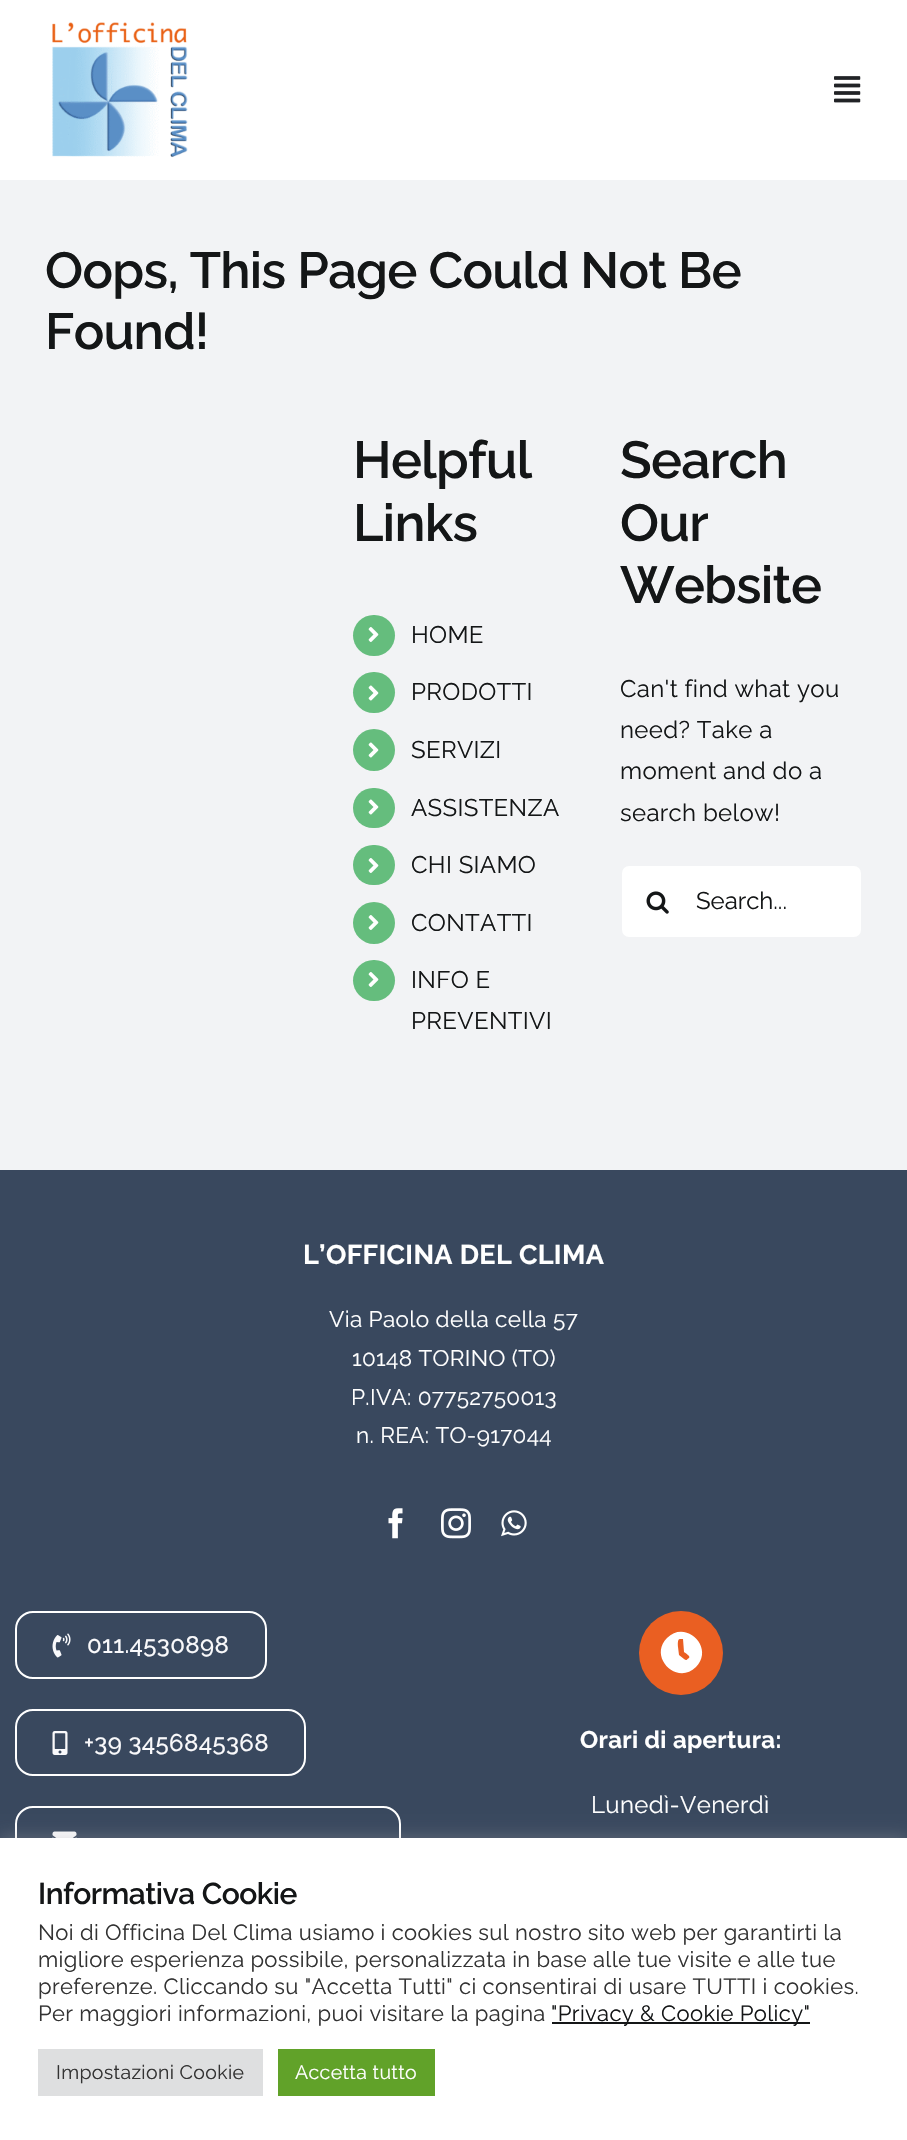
#include "include/core/SkBlurTypes.h"
#include "include/core/SkCanvas.h"
#include "include/core/SkData.h"
#include "include/core/SkFont.h"
#include "include/core/SkFontMgr.h"
#include "include/core/SkImage.h"
#include "include/core/SkMaskFilter.h"
#include "include/core/SkPaint.h"
#include "include/core/SkPathBuilder.h"
#include "include/core/SkTextBlob.h"
#include "include/effects/SkDashPathEffect.h"
#include "include/effects/SkGradientShader.h"
#include "include/utils/SkParsePath.h"

extern sk_sp<SkFontMgr> fontMgr;

void draw(SkCanvas* canvas) {
    SkPaint p;
    p.setAntiAlias(true);
    auto font = [&](const char* family, int weight, float size, bool italic = false) {
        SkFontStyle style(weight, SkFontStyle::kNormal_Width,
            italic ? SkFontStyle::kItalic_Slant : SkFontStyle::kUpright_Slant);
        SkFont result(fontMgr->matchFamilyStyle(family, style), size);
        result.setSubpixel(true);
        return result;
    };
    auto drawTracked = [&](const char* s, float x, float y, const SkFont& font, const SkPaint& ink, float letter, float word) {
        std::vector<SkGlyphID> glyphs(font.countText(s, strlen(s), SkTextEncoding::kUTF8));
        std::vector<float> xs(glyphs.size());
        font.textToGlyphs(s, strlen(s), SkTextEncoding::kUTF8, glyphs);
        font.getXPos(glyphs, xs, x);
        float extra = 0;
        for (size_t i = 0; i < glyphs.size(); i++) {
            xs[i] += extra;
            extra += letter + word * (glyphs[i] == font.unicharToGlyph(' '));
        }
        canvas->drawTextBlob(SkTextBlob::MakeFromPosHGlyphs(glyphs, xs, y, font), 0, 0, ink);
    };
    auto drawPhoto = [&](const char* path, float l, float t, float r, float b) {
        auto image = SkImages::DeferredFromEncodedData(SkData::MakeFromFileName(path));
        canvas->drawImageRect(image, SkRect::MakeLTRB(l, t, r, b), SkSamplingOptions());
    };
    canvas->clear(0xFFF2F3F5);
    p.setColor(0xFFFFFFFF);
    canvas->drawRect(SkRect::MakeLTRB(0, 0, 907, 180), p);
    drawPhoto("media/1.png", 52, 22, 188, 158);
    drawPhoto("media/2.png", 834, 76, 861, 103);
    auto font1 = font("Raleway", 600, 50.75f);
    p.setColor(0xFF141617);
    drawTracked("Oops, This Page Could Not Be", 45, 288, font1, p, -0.75f, 0);
    drawTracked("Found!", 45, 349, font1, p, -0.75f, 0);
    auto font2 = font("Raleway", 600, 52);
    drawTracked("Helpful", 353, 478, font2, p, -0.75f, 0);
    drawTracked("Links", 353, 541, font2, p, -0.75f, 0);
    p.setColor(0xFF65BD7D);
    canvas->drawRoundRect(SkRect::MakeLTRB(353, 615, 395, 656), 20.5f, 20.5f, p);
    drawPhoto("media/3.png", 368, 627, 379, 642);
    auto font3 = font("Raleway", 400, 24);
    p.setColor(0xFF141617);
    drawTracked("HOME", 411, 643, font3, p, 0.35f, 0);
    p.setColor(0xFF65BD7D);
    canvas->drawRoundRect(SkRect::MakeLTRB(353, 672, 395, 713), 20.5f, 20.5f, p);
    drawPhoto("media/4.png", 368, 685, 379, 701);
    p.setColor(0xFF141617);
    drawTracked("PRODOTTI", 411, 700, font3, p, 0.35f, 0);
    p.setColor(0xFF65BD7D);
    canvas->drawCircle(374, 750, 21, p);
    drawPhoto("media/4.png", 368, 742, 379, 758);
    p.setColor(0xFF141617);
    drawTracked("SERVIZI", 411, 758, font3, p, 0.35f, 0);
    p.setColor(0xFF65BD7D);
    canvas->drawRoundRect(SkRect::MakeLTRB(353, 788, 395, 828), 20, 20, p);
    drawPhoto("media/4.png", 368, 799, 379, 815);
    p.setColor(0xFF141617);
    drawTracked("ASSISTENZA", 411, 816, font3, p, 0.35f, 0);
    p.setColor(0xFF65BD7D);
    canvas->drawRoundRect(SkRect::MakeLTRB(353, 845, 395, 885), 20, 20, p);
    drawPhoto("media/3.png", 368, 858, 379, 873);
    p.setColor(0xFF141617);
    drawTracked("CHI SIAMO", 411, 873, font3, p, 0.35f, 0);
    p.setColor(0xFF65BD7D);
    canvas->drawCircle(374, 923, 21, p);
    drawPhoto("media/3.png", 368, 915, 379, 930);
    p.setColor(0xFF141617);
    drawTracked("CONTATTI", 411, 931, font3, p, 0.35f, 0);
    p.setColor(0xFF65BD7D);
    canvas->drawRoundRect(SkRect::MakeLTRB(353, 960, 395, 1001), 20.5f, 20.5f, p);
    drawPhoto("media/3.png", 368, 972, 379, 987);
    p.setColor(0xFF141617);
    drawTracked("INFO E", 411, 988, font3, p, 0.35f, 0);
    drawTracked("PREVENTIVI", 411, 1029, font3, p, 0.35f, 0);
    {
        const struct { const char* s; float x, y; } items[] = {
            {"Search", 620, 478},
            {"Our", 620, 541},
            {"Website", 620, 603},
        };
        for (auto [s, x, y] : items) {
            drawTracked(s, x, y, font2, p, -0.75f, 0);
        }
    }
    {
        const struct { const char* s; float x, y; } items[] = {
            {"Can't find what you", 620, 697},
            {"need? Take a", 620, 738},
            {"moment and do a", 620, 779},
            {"search below!", 620, 821},
        };
        for (auto [s, x, y] : items) {
            drawTracked(s, x, y, font3, p, 0.35f, 0);
        }
    }
    p.setColor(0xFFFFFFFF);
    canvas->drawRoundRect(SkRect::MakeLTRB(621, 865, 862, 938), 8, 8, p);
    p.setStyle(SkPaint::kStroke_Style);
    p.setStrokeWidth(2);
    p.setColor(0xFFF2F3F5);
    canvas->drawRoundRect(SkRect::MakeLTRB(621, 865, 862, 938), 8, 8, p);
    drawPhoto("media/5.png", 646, 891, 669, 914);
    p.setStyle(SkPaint::kFill_Style);
    p.setColor(0xFF141617);
    canvas->drawString("Search...", 696, 909, font3, p);
    p.setColor(0xFF39485E);
    canvas->drawRect(SkRect::MakeLTRB(0, 1170, 907, 1838), p);
    auto font4 = font("Raleway", 700, 27);
    p.setColor(0xFFFFFFFF);
    drawTracked("L’OFFICINA DEL CLIMA", 303, 1264, font4, p, 0.35f, 0);
    auto font5 = font("Raleway", 400, 22.5f);
    {
        const struct { const char* s; float x, y; } items[] = {
            {"Via Paolo della cella 57", 329, 1327},
            {"10148 TORINO (TO)", 352, 1366},
            {"P.IVA: 07752750013", 351, 1405},
            {"n. REA: TO-917044", 356, 1443},
        };
        for (auto [s, x, y] : items) {
            drawTracked(s, x, y, font5, p, 0.35f, 0);
        }
    }
    drawPhoto("media/6.png", 388, 1508, 403, 1539);
    drawPhoto("media/7.png", 441, 1508, 471, 1539);
    drawPhoto("media/8.png", 501, 1510, 527, 1537);
    p.setStyle(SkPaint::kStroke_Style);
    canvas->drawRoundRect(SkRect::MakeLTRB(16, 1612, 266, 1678), 17, 17, p);
    drawPhoto("media/9.png", 52, 1633, 71, 1658);
    auto font6 = font("Raleway", 500, 24);
    p.setStyle(SkPaint::kFill_Style);
    p.setColor(0xFFF9F9FB);
    drawTracked("011.4530898", 87, 1653, font6, p, 0.35f, 0);
    p.setStyle(SkPaint::kStroke_Style);
    p.setColor(0xFFFFFFFF);
    canvas->drawRoundRect(SkRect::MakeLTRB(16, 1710, 305, 1775), 17, 17, p);
    drawPhoto("media/10.png", 52, 1731, 68, 1755);
    p.setStyle(SkPaint::kFill_Style);
    p.setColor(0xFFF9F9FB);
    drawTracked("+39 3456845368", 84, 1751, font6, p, 0.35f, 0);
    p.setStyle(SkPaint::kStroke_Style);
    p.setColor(0xFFFFFFFF);
    canvas->drawRoundRect(SkRect::MakeLTRB(16, 1807, 400, 1874), 17, 17, p);
    drawPhoto("media/11.png", 52, 1831, 77, 1838);
    p.setStyle(SkPaint::kFill_Style);
    p.setColor(0xFFEA5F22);
    canvas->drawCircle(681, 1653, 42, p);
    p.setColor(0xFFFFFFFF);
    canvas->drawPath(SkPathBuilder().moveTo(667, 1638).cubicTo(686, 1619, 715, 1648, 696, 1667).cubicTo(677, 1686, 648, 1657, 667, 1638).close().moveTo(689, 1658).cubicTo(691, 1656, 685, 1653, 684, 1652).lineTo(683, 1639).lineTo(680, 1639).cubicTo(677, 1639, 678, 1646, 678, 1647).lineTo(679, 1655).lineTo(684, 1659).cubicTo(687, 1661, 686, 1660, 689, 1658).close().detach(), p);
    auto font7 = font("Raleway", 700, 24);
    drawTracked("Orari di apertura:", 580, 1748, font7, p, 0.35f, 0);
    drawTracked("Lunedì-Venerdì", 591, 1813, font3, p, 0.35f, 0);
    p.setColor(0x4DACABAB);
    p.setMaskFilter(SkMaskFilter::MakeBlur(kNormal_SkBlurStyle, 7.5f));
    canvas->drawRect(SkRect::MakeLTRB(0, 1836, 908, 2139), p);
    p.setMaskFilter(nullptr);
    p.setColor(0xFFFFFFFF);
    canvas->drawRect(SkRect::MakeLTRB(0, 1838, 907, 2140), p);
    auto font8 = font("Raleway", 600, 30);
    p.setColor(0xFF141617);
    drawTracked("Informativa Cookie", 38, 1904, font8, p, -0.5f, 0);
    auto font9 = font("Raleway", 400, 22);
    p.setColor(0xFF333333);
    {
        const struct { const char* s; float x, y; } items[] = {
            {"Noi di Officina Del Clima usiamo i cookies sul nostro sito web per garantirti la", 38, 1940},
            {"migliore esperienza possibile, personalizzata in base alle tue visite e alle tue", 38, 1967},
            {"preferenze. Cliccando su \"Accetta Tutti\" ci consentirai di usare TUTTI i cookies.", 38, 1994},
            {"Per maggiori informazioni, puoi visitare la pagina", 38, 2021},
        };
        for (auto [s, x, y] : items) {
            drawTracked(s, x, y, font9, p, 0.35f, 0);
        }
    }
    p.setColor(0xFF141617);
    canvas->drawRect(SkRect::MakeLTRB(552, 2022, 810, 2024), p);
    drawTracked("\"Privacy & Cookie Policy\"", 551, 2021, font9, p, 0.35f, 0);
    p.setColor(0xFFDEDFE0);
    canvas->drawRect(SkRect::MakeLTRB(38, 2049, 263, 2096), p);
    auto font10 = font("Raleway", 400, 19.5f);
    p.setColor(0xFF333333);
    drawTracked("Impostazioni Cookie", 56, 2079, font10, p, 0.35f, 0);
    p.setColor(0xFF61A229);
    canvas->drawRect(SkRect::MakeLTRB(278, 2049, 435, 2096), p);
    p.setColor(0xFFFFFFFF);
    drawTracked("Accetta tutto", 295, 2079, font10, p, 0.35f, 0);
}
